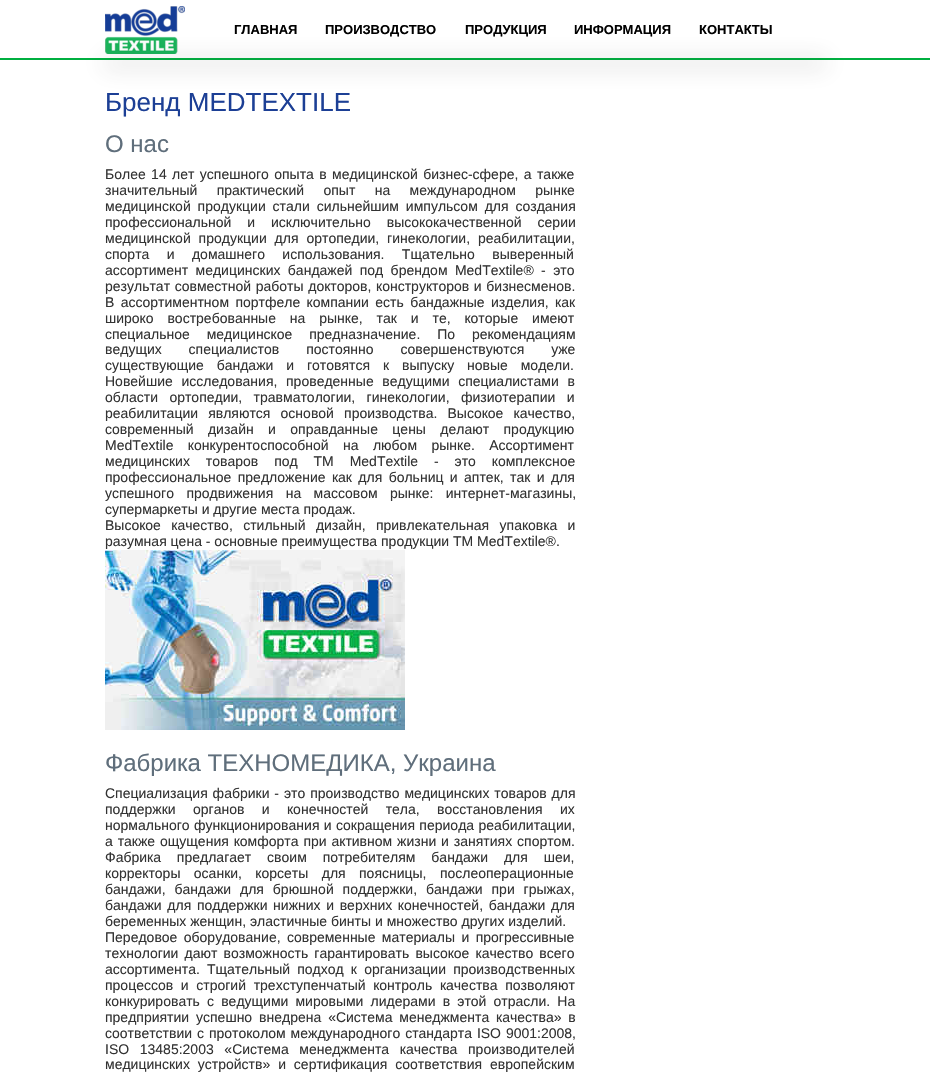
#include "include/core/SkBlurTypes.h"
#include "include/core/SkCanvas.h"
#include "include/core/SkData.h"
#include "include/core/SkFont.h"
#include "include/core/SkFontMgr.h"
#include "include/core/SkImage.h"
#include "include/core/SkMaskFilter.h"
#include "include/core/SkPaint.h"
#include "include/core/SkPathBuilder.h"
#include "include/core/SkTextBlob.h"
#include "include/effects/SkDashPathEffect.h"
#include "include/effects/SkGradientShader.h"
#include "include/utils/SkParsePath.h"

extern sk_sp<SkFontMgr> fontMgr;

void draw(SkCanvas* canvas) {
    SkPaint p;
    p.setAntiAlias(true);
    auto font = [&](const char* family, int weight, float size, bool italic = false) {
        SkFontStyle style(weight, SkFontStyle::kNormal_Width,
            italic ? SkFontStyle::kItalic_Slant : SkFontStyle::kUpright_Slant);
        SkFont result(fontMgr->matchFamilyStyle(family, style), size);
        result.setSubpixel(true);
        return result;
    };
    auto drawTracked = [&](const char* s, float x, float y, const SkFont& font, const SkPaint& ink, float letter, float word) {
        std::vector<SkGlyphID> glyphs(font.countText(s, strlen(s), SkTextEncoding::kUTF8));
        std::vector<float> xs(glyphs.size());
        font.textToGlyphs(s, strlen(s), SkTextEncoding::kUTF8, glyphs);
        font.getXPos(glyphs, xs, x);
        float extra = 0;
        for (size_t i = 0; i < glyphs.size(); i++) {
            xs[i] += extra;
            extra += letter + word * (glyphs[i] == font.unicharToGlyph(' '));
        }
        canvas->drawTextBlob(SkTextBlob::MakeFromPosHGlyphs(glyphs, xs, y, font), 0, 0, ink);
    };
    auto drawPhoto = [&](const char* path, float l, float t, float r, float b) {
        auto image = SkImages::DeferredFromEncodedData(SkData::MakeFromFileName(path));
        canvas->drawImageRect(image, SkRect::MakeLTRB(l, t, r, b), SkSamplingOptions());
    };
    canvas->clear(0xFFFFFFFF);
    p.setColor(0xFF00AF40);
    canvas->drawRect(SkRect::MakeLTRB(0, 58, 930, 60), p);
    drawPhoto("media/1.png", 105, 6, 185, 54);
    auto font1 = font("Liberation Sans", 700, 13);
    p.setColor(0xFF000000);
    {
        const struct { const char* s; float x, y; } items[] = {
            {"ГЛАВНАЯ", 234, 34},
            {"ПРОИЗВОДСТВО", 325, 34},
            {"ПРОДУКЦИЯ", 465, 34},
            {"ИНФОРМАЦИЯ", 574, 34},
            {"КОНТАКТЫ", 699, 34},
        };
        for (auto [s, x, y] : items) {
            canvas->drawString(s, x, y, font1, p);
        }
    }
    p.setColor(0x66323232);
    p.setMaskFilter(SkMaskFilter::MakeBlur(kNormal_SkBlurStyle, 11.5f));
    canvas->drawRect(SkRect::MakeLTRB(103, 61, 827, 65), p);
    p.setMaskFilter(nullptr);
    auto font2 = font("Liberation Sans", 400, 26);
    p.setColor(0xFF1C3F95);
    canvas->drawString("Бренд MEDTEXTILE", 105, 111, font2, p);
    auto font3 = font("Liberation Sans", 400, 24);
    p.setColor(0xFF5F6E7B);
    canvas->drawString("О нас", 105, 152, font3, p);
    auto font4 = font("Liberation Sans", 400, 14);
    p.setColor(0xFF333333);
    drawTracked("Более 14 лет успешного опыта в медицинской бизнес-сфере, а также", 105, 179, font4, p, 0, 1.5f);
    drawTracked("значительный практический опыт на международном рынке", 105, 195, font4, p, 0, 15.5f);
    drawTracked("медицинской продукции стали сильнейшим импульсом для создания", 105, 211, font4, p, 0, 3);
    drawTracked("профессиональной и исключительно высококачественной серии", 105, 227, font4, p, 0, 12);
    drawTracked("медицинской продукции для ортопедии, гинекологии, реабилитации,", 105, 243, font4, p, 0, 4);
    drawTracked("спорта и домашнего использования. Тщательно выверенный", 105, 259, font4, p, 0, 13.5f);
    drawTracked("ассортимент медицинских бандажей под брендом MedTextile® - это", 105, 275, font4, p, 0, 3.5f);
    drawTracked("результат совместной работы докторов, конструкторов и бизнесменов.", 105, 291, font4, p, 0, 0.75f);
    drawTracked("В ассортиментном портфеле компании есть бандажные изделия, как", 105, 307, font4, p, 0, 2.5f);
    drawTracked("широко востребованные на рынке, так и те, которые имеют", 105, 323, font4, p, 0, 10);
    drawTracked("специальное медицинское предназначение. По рекомендациям", 105, 339, font4, p, 0, 13);
    drawTracked("ведущих специалистов постоянно совершенствуются уже", 105, 354, font4, p, 0, 23);
    drawTracked("существующие бандажи и готовятся к выпуску новые модели.", 105, 370, font4, p, 0, 9);
    drawTracked("Новейшие исследования, проведенные ведущими специалистами в", 105, 386, font4, p, 0, 4.75f);
    drawTracked("области ортопедии, травматологии, гинекологии, физиотерапии и", 105, 402, font4, p, 0, 7.5f);
    drawTracked("реабилитации являются основой производства. Высокое качество,", 105, 418, font4, p, 0, 6.25f);
    drawTracked("современный дизайн и оправданные цены делают продукцию", 105, 434, font4, p, 0, 10.5f);
    drawTracked("MedTextile конкурентоспособной на любом рынке. Ассортимент", 105, 450, font4, p, 0, 10.5f);
    drawTracked("медицинских товаров под ТМ MedTextile - это комплексное", 105, 466, font4, p, 0, 12);
    drawTracked("профессиональное предложение как для больниц и аптек, так и для", 105, 482, font4, p, 0, 2.5f);
    drawTracked("успешного продвижения на массовом рынке: интернет-магазины,", 105, 498, font4, p, 0, 8.5f);
    canvas->drawString("супермаркеты и другие места продаж.", 105, 514, font4, p);
    drawTracked("Высокое качество, стильный дизайн, привлекательная упаковка и", 105, 530, font4, p, 0, 6.5f);
    canvas->drawString("разумная цена - основные преимущества продукции ТМ MedTextile®.", 105, 546, font4, p);
    drawPhoto("media/2.png", 105, 550, 405, 730);
    p.setColor(0xFF5F6E7B);
    canvas->drawString("Фабрика ТЕХНОМЕДИКА, Украина", 105, 771, font3, p);
    p.setColor(0xFF333333);
    drawTracked("Специализация фабрики - это производство медицинских товаров для", 105, 798, font4, p, 0, 1);
    drawTracked("поддержки органов и конечностей тела, восстановления их", 105, 814, font4, p, 0, 13.5f);
    drawTracked("нормального функционирования и сокращения периода реабилитации,", 105, 830, font4, p, 0, 0.5f);
    drawTracked("а также ощущения комфорта при активном жизни и занятиях спортом.", 105, 846, font4, p, 0, 1);
    drawTracked("Фабрика предлагает своим потребителям бандажи для шеи,", 105, 862, font4, p, 0, 12);
    drawTracked("корректоры осанки, корсеты для поясницы, послеоперационные", 105, 878, font4, p, 0, 9.5f);
    drawTracked("бандажи, бандажи для брюшной поддержки, бандажи при грыжах,", 105, 894, font4, p, 0, 5);
    drawTracked("бандажи для поддержки нижних и верхних конечностей, бандажи для", 105, 910, font4, p, 0, 1.75f);
    canvas->drawString("беременных женщин, эластичные бинты и множество других изделий.", 105, 926, font4, p);
    drawTracked("Передовое оборудование, современные материалы и прогрессивные", 105, 942, font4, p, 0, 2.5f);
    drawTracked("технологии дают возможность гарантировать высокое качество всего", 105, 958, font4, p, 0, 2.25f);
    drawTracked("ассортимента. Тщательный подход к организации производственных", 105, 974, font4, p, 0, 3.25f);
    drawTracked("процессов и строгий трехступенчатый контроль качества позволяют", 105, 990, font4, p, 0, 3.75f);
    drawTracked("конкурировать с ведущими мировыми лидерами в этой отрасли. На", 105, 1006, font4, p, 0, 3.25f);
    drawTracked("предприятии успешно внедрена «Система менеджмента качества» в", 105, 1022, font4, p, 0, 3);
    drawTracked("соответствии с протоколом международного стандарта ISO 9001:2008,", 105, 1038, font4, p, 0, 1);
    drawTracked("ISO 13485:2003 «Система менеджмента качества производителей", 105, 1054, font4, p, 0, 6.75f);
    drawTracked("медицинских устройств» и сертификация соответствия европейским", 105, 1069, font4, p, 0, 4);
}
